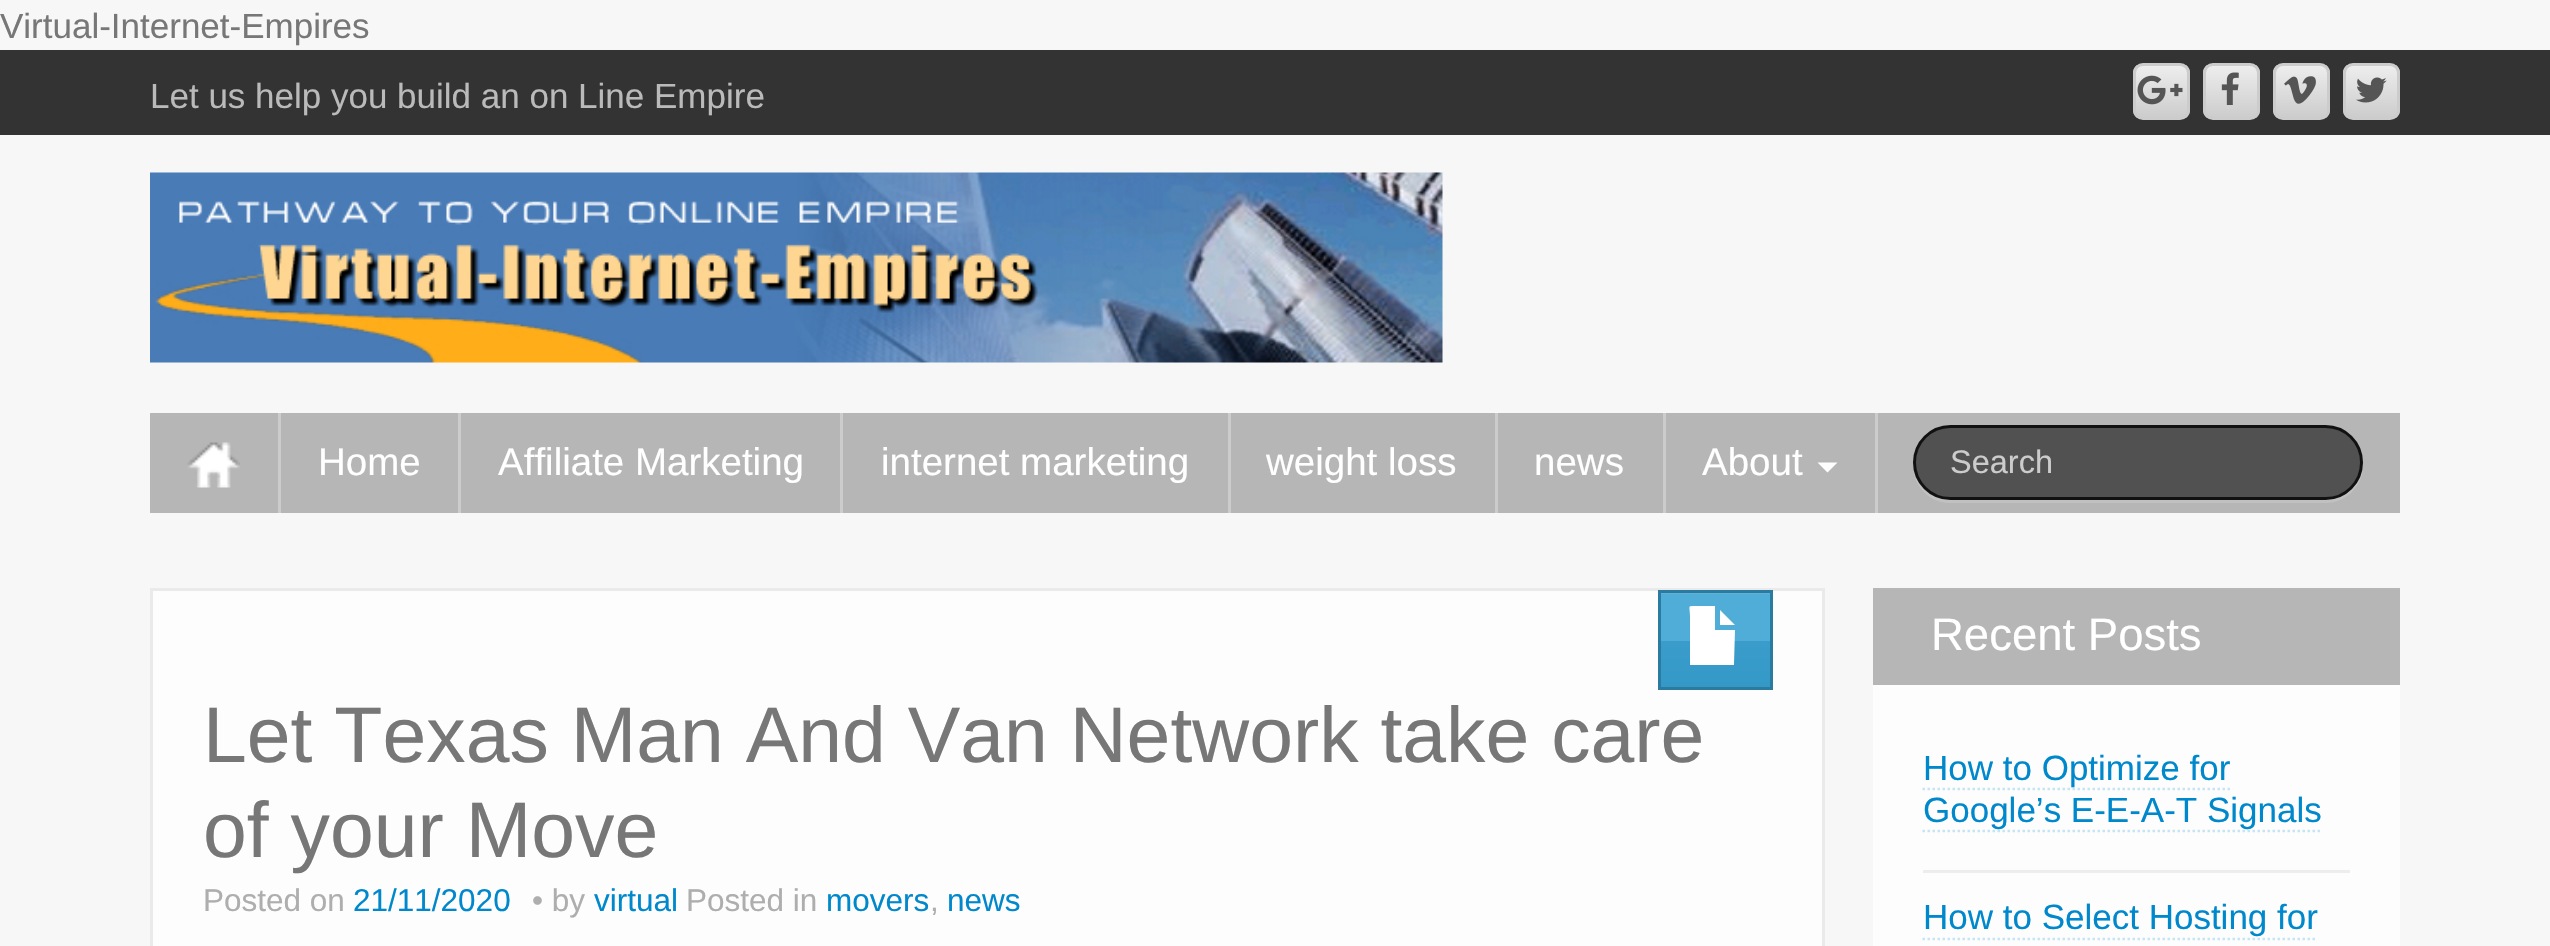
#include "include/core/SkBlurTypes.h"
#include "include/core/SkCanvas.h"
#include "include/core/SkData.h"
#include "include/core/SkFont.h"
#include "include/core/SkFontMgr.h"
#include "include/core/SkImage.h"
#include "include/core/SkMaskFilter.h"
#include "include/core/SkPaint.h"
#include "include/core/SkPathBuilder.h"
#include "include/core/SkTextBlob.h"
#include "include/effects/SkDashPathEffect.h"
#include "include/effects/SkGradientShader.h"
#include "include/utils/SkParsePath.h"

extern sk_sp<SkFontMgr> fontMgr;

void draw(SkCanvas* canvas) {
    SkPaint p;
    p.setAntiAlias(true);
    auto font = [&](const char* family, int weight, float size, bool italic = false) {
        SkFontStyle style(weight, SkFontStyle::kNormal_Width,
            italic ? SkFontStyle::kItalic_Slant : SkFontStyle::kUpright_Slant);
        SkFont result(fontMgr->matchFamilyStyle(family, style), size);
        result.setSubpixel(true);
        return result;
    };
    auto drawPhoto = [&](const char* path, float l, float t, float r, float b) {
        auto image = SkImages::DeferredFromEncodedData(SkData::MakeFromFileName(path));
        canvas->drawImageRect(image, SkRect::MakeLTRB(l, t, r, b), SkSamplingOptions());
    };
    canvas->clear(0xFFF7F7F7);
    auto font1 = font("Liberation Sans", 400, 35);
    p.setColor(0xFF777777);
    canvas->drawString("Virtual-Internet-Empires", 0, 38, font1, p);
    p.setColor(0xFF333333);
    canvas->drawRect(SkRect::MakeLTRB(0, 50, 2550, 135), p);
    p.setColor(0xFFBABABA);
    canvas->drawString("Let us help you build an on Line Empire", 150, 108, font1, p);
    canvas->save();
    canvas->clipPath(SkPathBuilder().moveTo(2143, 63).lineTo(2180, 63).cubicTo(2185.5f, 63, 2190, 67.5f, 2190, 73).lineTo(2190, 110).cubicTo(2190, 115.5f, 2185.5f, 120, 2180, 120).lineTo(2143, 120).cubicTo(2137.5f, 120, 2133, 115.5f, 2133, 110).lineTo(2133, 73).cubicTo(2133, 67.5f, 2137.5f, 63, 2143, 63).close().detach(), true);
    {
        const SkColor colors[] = {0xFFEEEEEE, 0xFFCCCCCC};
        const float stops[] = {0, 1};
        const SkPoint ends[] = {{2161, 65}, {2161, 118}};
        p.setShader(SkGradientShader::MakeLinear(ends, colors, stops, 2, SkTileMode::kClamp));
        p.setAlpha(255);
    }
    canvas->drawRect(SkRect::MakeLTRB(2133, 65, 2190, 118), p);
    canvas->restore();
    p.setStyle(SkPaint::kStroke_Style);
    p.setStrokeWidth(3);
    p.setShader(nullptr);
    p.setColor(0xFFCCCCCC);
    canvas->drawRoundRect(SkRect::MakeLTRB(2134.5f, 64.5f, 2188.5f, 118.5f), 8.5f, 8.5f, p);
    drawPhoto("media/1.png", 2137, 75, 2183, 105);
    canvas->save();
    canvas->clipPath(SkPathBuilder().moveTo(2213, 63).lineTo(2250, 63).cubicTo(2255.5f, 63, 2260, 67.5f, 2260, 73).lineTo(2260, 110).cubicTo(2260, 115.5f, 2255.5f, 120, 2250, 120).lineTo(2213, 120).cubicTo(2207.5f, 120, 2203, 115.5f, 2203, 110).lineTo(2203, 73).cubicTo(2203, 67.5f, 2207.5f, 63, 2213, 63).close().detach(), true);
    p.setStyle(SkPaint::kFill_Style);
    {
        const SkColor colors[] = {0xFFEEEEEE, 0xFFCCCCCC};
        const float stops[] = {0, 1};
        const SkPoint ends[] = {{2231, 65}, {2231, 118}};
        p.setShader(SkGradientShader::MakeLinear(ends, colors, stops, 2, SkTileMode::kClamp));
        p.setAlpha(255);
    }
    canvas->drawRect(SkRect::MakeLTRB(2203, 65, 2260, 118), p);
    canvas->restore();
    p.setStyle(SkPaint::kStroke_Style);
    p.setShader(nullptr);
    p.setColor(0xFFCCCCCC);
    canvas->drawRoundRect(SkRect::MakeLTRB(2204.5f, 64.5f, 2258.5f, 118.5f), 8.5f, 8.5f, p);
    drawPhoto("media/2.png", 2221, 72, 2239, 105);
    canvas->save();
    canvas->clipPath(SkPathBuilder().moveTo(2283, 63).lineTo(2320, 63).cubicTo(2325.5f, 63, 2330, 67.5f, 2330, 73).lineTo(2330, 110).cubicTo(2330, 115.5f, 2325.5f, 120, 2320, 120).lineTo(2283, 120).cubicTo(2277.5f, 120, 2273, 115.5f, 2273, 110).lineTo(2273, 73).cubicTo(2273, 67.5f, 2277.5f, 63, 2283, 63).close().detach(), true);
    p.setStyle(SkPaint::kFill_Style);
    {
        const SkColor colors[] = {0xFFEEEEEE, 0xFFCCCCCC};
        const float stops[] = {0, 1};
        const SkPoint ends[] = {{2301, 65}, {2301, 118}};
        p.setShader(SkGradientShader::MakeLinear(ends, colors, stops, 2, SkTileMode::kClamp));
        p.setAlpha(255);
    }
    canvas->drawRect(SkRect::MakeLTRB(2273, 65, 2330, 118), p);
    canvas->restore();
    p.setStyle(SkPaint::kStroke_Style);
    p.setShader(nullptr);
    p.setColor(0xFFCCCCCC);
    canvas->drawRoundRect(SkRect::MakeLTRB(2274.5f, 64.5f, 2328.5f, 118.5f), 8.5f, 8.5f, p);
    drawPhoto("media/3.png", 2284, 76, 2316, 104);
    canvas->save();
    canvas->clipPath(SkPathBuilder().moveTo(2353, 63).lineTo(2390, 63).cubicTo(2395.5f, 63, 2400, 67.5f, 2400, 73).lineTo(2400, 110).cubicTo(2400, 115.5f, 2395.5f, 120, 2390, 120).lineTo(2353, 120).cubicTo(2347.5f, 120, 2343, 115.5f, 2343, 110).lineTo(2343, 73).cubicTo(2343, 67.5f, 2347.5f, 63, 2353, 63).close().detach(), true);
    p.setStyle(SkPaint::kFill_Style);
    {
        const SkColor colors[] = {0xFFEEEEEE, 0xFFCCCCCC};
        const float stops[] = {0, 1};
        const SkPoint ends[] = {{2371, 65}, {2371, 118}};
        p.setShader(SkGradientShader::MakeLinear(ends, colors, stops, 2, SkTileMode::kClamp));
        p.setAlpha(255);
    }
    canvas->drawRect(SkRect::MakeLTRB(2343, 65, 2400, 118), p);
    canvas->restore();
    p.setStyle(SkPaint::kStroke_Style);
    p.setShader(nullptr);
    p.setColor(0xFFCCCCCC);
    canvas->drawRoundRect(SkRect::MakeLTRB(2344.5f, 64.5f, 2398.5f, 118.5f), 8.5f, 8.5f, p);
    drawPhoto("media/4.png", 2356, 77, 2387, 103);
    drawPhoto("media/5.png", 150, 172, 1443, 363);
    p.setStyle(SkPaint::kFill_Style);
    p.setColor(0xFFB6B6B6);
    canvas->drawRect(SkRect::MakeLTRB(150, 413, 2400, 513), p);
    p.setColor(0xFFCCCCCC);
    canvas->drawRect(SkRect::MakeLTRB(278, 413, 281, 513), p);
    drawPhoto("media/6.png", 187, 442, 240, 488);
    canvas->drawRect(SkRect::MakeLTRB(458, 413, 461, 513), p);
    auto font2 = font("Liberation Sans", 400, 38.5f);
    p.setColor(0xFFFFFFFF);
    canvas->drawString("Home", 318, 475, font2, p);
    p.setColor(0xFFCCCCCC);
    canvas->drawRect(SkRect::MakeLTRB(840, 413, 843, 513), p);
    p.setColor(0xFFFFFFFF);
    canvas->drawString("Affiliate Marketing", 498, 475, font2, p);
    p.setColor(0xFFCCCCCC);
    canvas->drawRect(SkRect::MakeLTRB(1228, 413, 1231, 513), p);
    p.setColor(0xFFFFFFFF);
    canvas->drawString("internet marketing", 881, 475, font2, p);
    p.setColor(0xFFCCCCCC);
    canvas->drawRect(SkRect::MakeLTRB(1495, 413, 1498, 513), p);
    p.setColor(0xFFFFFFFF);
    canvas->drawString("weight loss", 1266, 475, font2, p);
    p.setColor(0xFFCCCCCC);
    canvas->drawRect(SkRect::MakeLTRB(1663, 413, 1666, 513), p);
    p.setColor(0xFFFFFFFF);
    canvas->drawString("news", 1534, 475, font2, p);
    p.setColor(0xFFCCCCCC);
    canvas->drawRect(SkRect::MakeLTRB(1875, 413, 1878, 513), p);
    p.setColor(0xFFFFFFFF);
    canvas->drawString("About", 1702, 475, font2, p);
    canvas->drawPath(SkPathBuilder().moveTo(1817.5f, 462.5f).lineTo(1837.5f, 462.5f).lineTo(1827.5f, 472.5f).close().detach(), p);
    p.setColor(0xFFC1C1C1);
    canvas->drawPath(SkPathBuilder().moveTo(1913, 470).cubicTo(1916, 489, 1931, 503, 1950, 503).lineTo(2326, 503).cubicTo(2346, 503, 2363, 486, 2363, 466).lineTo(2362, 458).lineTo(2362, 462).cubicTo(2362, 483, 2346, 500, 2325, 500).lineTo(1950, 500).cubicTo(1932, 500, 1917, 487, 1913, 470).close().detach(), p);
    p.setColor(0xFF515151);
    canvas->drawRoundRect(SkRect::MakeLTRB(1914.5f, 426.5f, 2361.5f, 498.5f), 36, 36, p);
    p.setStyle(SkPaint::kStroke_Style);
    p.setColor(0xFF111111);
    canvas->drawRoundRect(SkRect::MakeLTRB(1914.5f, 426.5f, 2361.5f, 498.5f), 36, 36, p);
    auto font3 = font("Liberation Sans", 400, 32.5f);
    p.setStyle(SkPaint::kFill_Style);
    p.setColor(0xFFCCCCCC);
    canvas->drawString("Search", 1950, 473, font3, p);
    p.setColor(0xFFFDFDFD);
    canvas->drawRect(SkRect::MakeLTRB(151.5f, 589.5f, 1823.5f, 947.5f), p);
    p.setStyle(SkPaint::kStroke_Style);
    p.setColor(0xFFEAEAEA);
    canvas->drawRect(SkRect::MakeLTRB(151.5f, 589.5f, 1823.5f, 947.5f), p);
    p.setStyle(SkPaint::kFill_Style);
    {
        const SkColor colors[] = {0xFF6FB7D6, 0xFF4FADD8, 0xFF4FADD8, 0xFF399CCA, 0xFF3599C7};
        const float stops[] = {0, 0.01f, 0.5f, 0.51f, 1};
        const SkPoint ends[] = {{1715, 593}, {1715, 688}};
        p.setShader(SkGradientShader::MakeLinear(ends, colors, stops, 5, SkTileMode::kClamp));
        p.setAlpha(255);
    }
    canvas->drawRect(SkRect::MakeLTRB(1661, 593, 1770, 687), p);
    p.setStyle(SkPaint::kStroke_Style);
    p.setShader(nullptr);
    p.setColor(0xFF2B7A9F);
    canvas->drawRect(SkRect::MakeLTRB(1659.5f, 591.5f, 1771.5f, 688.5f), p);
    p.setStyle(SkPaint::kFill_Style);
    p.setColor(0xFFFFFFFF);
    canvas->drawPath(SkPathBuilder().moveTo(1690, 664).lineTo(1690, 616).cubicTo(1690, 606, 1687, 606, 1695, 606).lineTo(1715, 606).lineTo(1715, 630).lineTo(1735, 630).lineTo(1734, 664).lineTo(1734, 665).lineTo(1690, 665).close().moveTo(1720, 625).lineTo(1720, 610).lineTo(1735, 625).close().detach(), p);
    auto font4 = font("Liberation Sans", 400, 78.75f);
    p.setColor(0xFF777777);
    canvas->drawString("Let Texas Man And Van Network take care", 203, 762, font4, p);
    canvas->drawString("of your Move", 203, 857, font4, p);
    auto font5 = font("Liberation Sans", 400, 31.5f);
    p.setColor(0xFFAFAEAE);
    canvas->drawString("Posted on", 203, 911, font5, p);
    p.setColor(0xFF0088CC);
    canvas->drawString("21/11/2020", 353, 911, font5, p);
    p.setColor(0xFFAFAEAE);
    canvas->drawString("• by", 532, 911, font5, p);
    p.setColor(0xFF0088CC);
    canvas->drawString("virtual", 594, 911, font5, p);
    p.setColor(0xFFAFAEAE);
    canvas->drawString("Posted in", 686, 911, font5, p);
    p.setColor(0xFF0088CC);
    canvas->drawString("movers", 826, 911, font5, p);
    p.setColor(0xFFAFAEAE);
    canvas->drawString(",", 930, 911, font5, p);
    p.setColor(0xFF0088CC);
    canvas->drawString("news", 947, 911, font5, p);
    p.setColor(0xFFFDFDFD);
    canvas->drawRect(SkRect::MakeLTRB(1873, 685, 2400, 946), p);
    p.setColor(0xFFB6B6B6);
    canvas->drawRect(SkRect::MakeLTRB(1873, 588, 2400, 685), p);
    auto font6 = font("Liberation Sans", 400, 45.5f);
    p.setColor(0xFFFFFFFF);
    canvas->drawString("Recent Posts", 1931, 650, font6, p);
    p.setColor(0xFFEDEDED);
    canvas->drawRect(SkRect::MakeLTRB(1923, 870, 2350, 873), p);
    p.setStyle(SkPaint::kStroke_Style);
    p.setStrokeWidth(2.5f);
    p.setColor(0xFFC5E5F4);
    p.setPathEffect(SkDashPathEffect::Make({{2.5f, 2.5f}}, 0));
    canvas->drawPath(SkPathBuilder().moveTo(1922.5f, 789).lineTo(2230, 789).detach(), p);
    p.setPathEffect(nullptr);
    p.setStyle(SkPaint::kFill_Style);
    p.setColor(0xFF0088CC);
    canvas->drawString("How to Optimize for", 1923, 780, font1, p);
    p.setStyle(SkPaint::kStroke_Style);
    p.setColor(0xFFC5E5F4);
    p.setPathEffect(SkDashPathEffect::Make({{2.5f, 2.5f}}, 0));
    canvas->drawPath(SkPathBuilder().moveTo(1922.5f, 831).lineTo(2322.5f, 831).detach(), p);
    p.setPathEffect(nullptr);
    p.setStyle(SkPaint::kFill_Style);
    p.setColor(0xFF0088CC);
    canvas->drawString("Google’s E-E-A-T Signals", 1923, 822, font1, p);
    canvas->drawString("How to Select Hosting for", 1923, 929, font1, p);
    p.setStyle(SkPaint::kStroke_Style);
    p.setColor(0xFFC5E5F4);
    p.setPathEffect(SkDashPathEffect::Make({{2.5f, 2.5f}}, 0));
    canvas->drawPath(SkPathBuilder().moveTo(1922.5f, 939).lineTo(2317.5f, 939).detach(), p);
    p.setPathEffect(nullptr);
}
